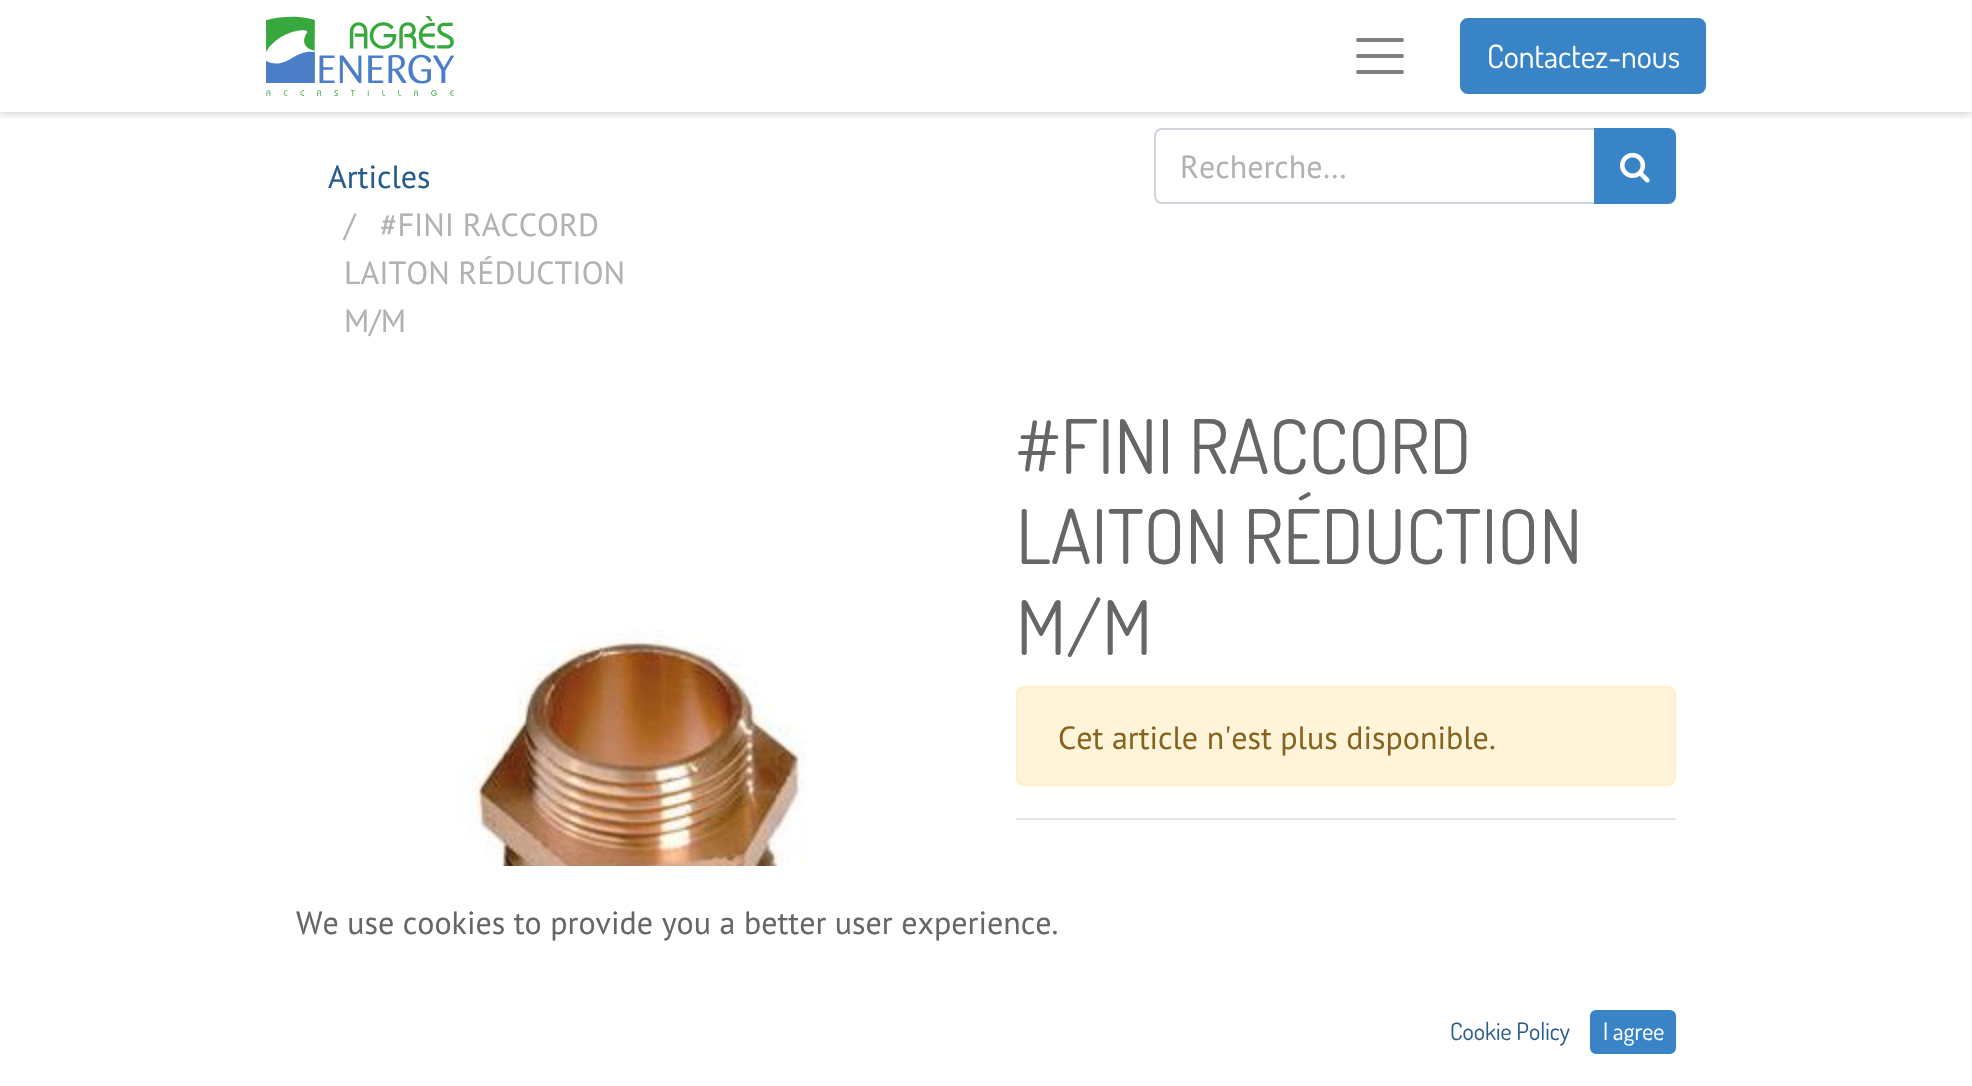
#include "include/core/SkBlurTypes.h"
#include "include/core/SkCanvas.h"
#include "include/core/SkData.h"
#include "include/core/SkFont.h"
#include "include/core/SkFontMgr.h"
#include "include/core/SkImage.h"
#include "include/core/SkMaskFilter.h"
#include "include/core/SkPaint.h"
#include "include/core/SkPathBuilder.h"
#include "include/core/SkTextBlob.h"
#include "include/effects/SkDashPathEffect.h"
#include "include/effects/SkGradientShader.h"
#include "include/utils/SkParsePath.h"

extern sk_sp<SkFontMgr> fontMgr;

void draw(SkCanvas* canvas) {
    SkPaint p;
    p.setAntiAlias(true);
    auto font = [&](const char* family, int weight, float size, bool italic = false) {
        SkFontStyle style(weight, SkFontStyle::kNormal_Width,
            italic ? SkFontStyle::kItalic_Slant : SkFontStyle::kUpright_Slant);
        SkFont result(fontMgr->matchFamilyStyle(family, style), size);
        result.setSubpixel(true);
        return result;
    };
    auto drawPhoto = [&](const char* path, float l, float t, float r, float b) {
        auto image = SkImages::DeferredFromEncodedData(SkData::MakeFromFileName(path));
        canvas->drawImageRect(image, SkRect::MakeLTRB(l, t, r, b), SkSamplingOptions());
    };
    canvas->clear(0xFFFFFFFF);
    canvas->save();
    canvas->clipRect(SkRect::MakeLTRB(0, 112, 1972, 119));
    p.setColor(0x40000000);
    p.setMaskFilter(SkMaskFilter::MakeBlur(kNormal_SkBlurStyle, 5));
    canvas->drawRect(SkRect::MakeLTRB(0, 0, 1972, 112), p);
    p.setMaskFilter(nullptr);
    canvas->restore();
    drawPhoto("media/1.png", 266, 16, 454, 96);
    p.setStyle(SkPaint::kStroke_Style);
    p.setStrokeWidth(4);
    p.setStrokeCap(SkPaint::kRound_Cap);
    p.setColor(0xFF808080);
    canvas->drawPath(SkPathBuilder().moveTo(1358, 40).lineTo(1402, 40).moveTo(1358, 56).lineTo(1402, 56).moveTo(1358, 72).lineTo(1402, 72).detach(), p);
    p.setStyle(SkPaint::kFill_Style);
    p.setColor(0xFF3984C6);
    canvas->drawRoundRect(SkRect::MakeLTRB(1461, 19, 1705, 93), 7, 7, p);
    p.setStyle(SkPaint::kStroke_Style);
    p.setStrokeWidth(2);
    p.setStrokeCap(SkPaint::kButt_Cap);
    canvas->drawRoundRect(SkRect::MakeLTRB(1461, 19, 1705, 93), 7, 7, p);
    auto font1 = font("Dosis", 400, 32);
    p.setStyle(SkPaint::kFill_Style);
    p.setColor(0xFFFFFFFF);
    canvas->drawString("Contactez-nous", 1487, 68, font1, p);
    auto font2 = font("PT Sans", 400, 32);
    p.setColor(0xFF285C8B);
    canvas->drawString("Articles", 328, 188, font2, p);
    p.setColor(0xFFB3B2B2);
    {
        const struct { const char* s; float x, y; } items[] = {
            {"/", 344, 236},
            {"#FINI RACCORD", 380, 236},
            {"LAITON RÉDUCTION", 344, 284},
            {"M/M", 344, 332},
        };
        for (auto [s, x, y] : items) {
            canvas->drawString(s, x, y, font2, p);
        }
    }
    p.setStyle(SkPaint::kStroke_Style);
    p.setColor(0xFFCED4DA);
    canvas->drawPath(SkPathBuilder().moveTo(1162, 129).lineTo(1595, 129).lineTo(1595, 203).lineTo(1162, 203).cubicTo(1158, 203, 1155, 200, 1155, 196).lineTo(1155, 136).cubicTo(1155, 132, 1158, 129, 1162, 129).close().detach(), p);
    p.setStyle(SkPaint::kFill_Style);
    p.setColor(0xFFB3B2B2);
    canvas->drawString("Recherche…", 1180, 178, font2, p);
    p.setColor(0xFF3984C6);
    canvas->drawPath(SkPathBuilder().moveTo(1595, 129).lineTo(1668, 129).cubicTo(1672, 129, 1675, 132, 1675, 136).lineTo(1675, 196).cubicTo(1675, 200, 1672, 203, 1668, 203).lineTo(1595, 203).close().detach(), p);
    p.setStyle(SkPaint::kStroke_Style);
    canvas->drawPath(SkPathBuilder().moveTo(1595, 129).lineTo(1668, 129).cubicTo(1672, 129, 1675, 132, 1675, 136).lineTo(1675, 196).cubicTo(1675, 200, 1672, 203, 1668, 203).lineTo(1595, 203).close().detach(), p);
    drawPhoto("media/2.png", 1620, 152, 1650, 183);
    drawPhoto("media/3.png", 455, 630, 865, 866);
    auto font3 = font("Dosis", 400, 75.25f);
    p.setStyle(SkPaint::kFill_Style);
    p.setColor(0xFF666666);
    {
        const struct { const char* s; float x, y; } items[] = {
            {"#FINI RACCORD", 1016, 474},
            {"LAITON RÉDUCTION", 1016, 564},
            {"M/M", 1016, 655},
        };
        for (auto [s, x, y] : items) {
            canvas->drawString(s, x, y, font3, p);
        }
    }
    p.setColor(0xFFFFF3D8);
    canvas->drawRoundRect(SkRect::MakeLTRB(1017, 687, 1675, 785), 7, 7, p);
    p.setStyle(SkPaint::kStroke_Style);
    p.setColor(0xFFFFEEC9);
    canvas->drawRoundRect(SkRect::MakeLTRB(1017, 687, 1675, 785), 7, 7, p);
    p.setStyle(SkPaint::kFill_Style);
    p.setColor(0xFF856420);
    canvas->drawString("Cet article n'est plus disponible.", 1058, 749, font2, p);
    p.setColor(0xFFE6E6E6);
    canvas->drawRect(SkRect::MakeLTRB(1016, 818, 1676, 820), p);
    p.setColor(0xFF666666);
    canvas->drawString("We use cookies to provide you a better user experience.", 296, 934, font2, p);
    auto font4 = font("Dosis", 400, 24);
    p.setColor(0xFF285C8B);
    canvas->drawString("Cookie Policy", 1450, 1040, font4, p);
    p.setColor(0xFF3984C6);
    canvas->drawRoundRect(SkRect::MakeLTRB(1591, 1011, 1675, 1053), 5, 5, p);
    p.setStyle(SkPaint::kStroke_Style);
    canvas->drawRoundRect(SkRect::MakeLTRB(1591, 1011, 1675, 1053), 5, 5, p);
    p.setStyle(SkPaint::kFill_Style);
    p.setColor(0xFFFFFFFF);
    canvas->drawString("I agree", 1603, 1040, font4, p);
}
